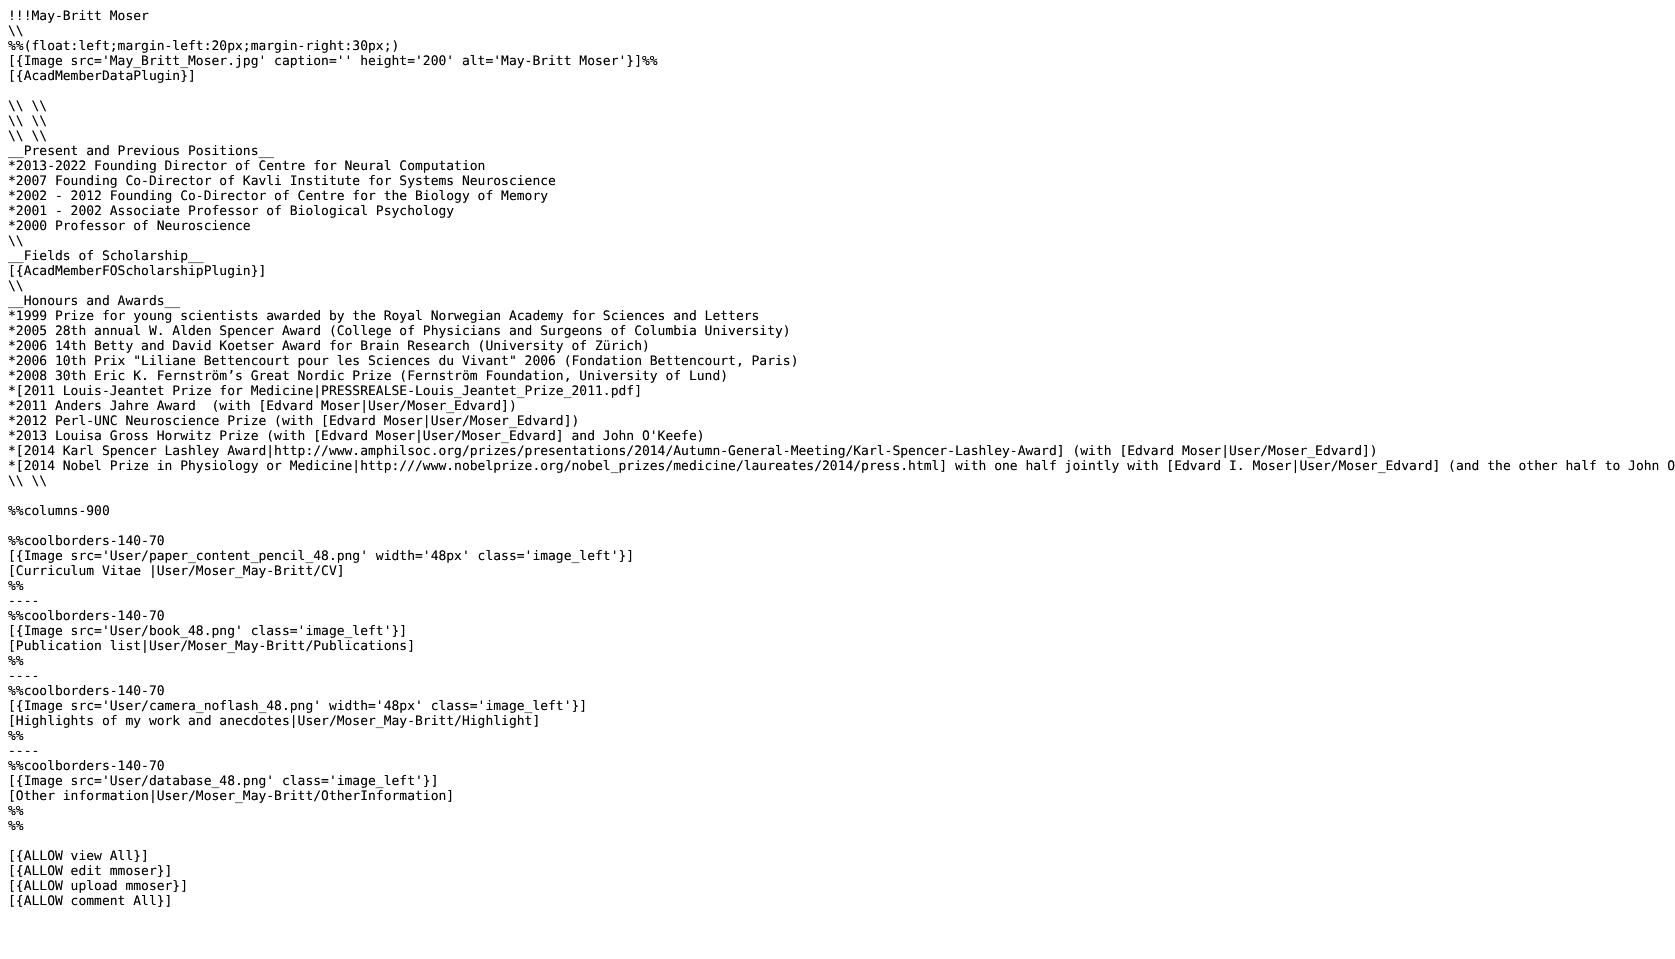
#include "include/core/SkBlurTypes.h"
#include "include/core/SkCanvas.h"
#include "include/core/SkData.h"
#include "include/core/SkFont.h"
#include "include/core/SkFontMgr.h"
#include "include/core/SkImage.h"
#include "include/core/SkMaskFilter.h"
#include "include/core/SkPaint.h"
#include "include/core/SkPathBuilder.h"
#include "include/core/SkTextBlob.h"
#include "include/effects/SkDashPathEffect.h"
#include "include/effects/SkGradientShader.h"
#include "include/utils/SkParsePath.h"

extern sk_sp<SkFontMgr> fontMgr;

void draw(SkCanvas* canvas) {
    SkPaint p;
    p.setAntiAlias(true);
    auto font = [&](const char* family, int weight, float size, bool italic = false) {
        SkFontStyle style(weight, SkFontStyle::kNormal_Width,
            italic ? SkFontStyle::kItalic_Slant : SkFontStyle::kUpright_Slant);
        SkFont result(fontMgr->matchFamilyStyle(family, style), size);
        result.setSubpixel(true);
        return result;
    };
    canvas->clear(0xFFFFFFFF);
    auto font1 = font("DejaVu Sans Mono", 400, 13);
    p.setColor(0xFF000000);
    {
        const struct { const char* s; float x, y; } items[] = {
            {"!!!May-Britt Moser", 8, 20},
            {"\\\\", 8, 35},
            {"%%(float:left;margin-left:20px;margin-right:30px;)", 8, 50},
            {"[{Image src='May_Britt_Moser.jpg' caption='' height='200' alt='May-Britt Moser'}]%%", 8, 65},
            {"[{AcadMemberDataPlugin}]", 8, 80},
            {"\\\\ \\\\", 8, 110},
            {"\\\\ \\\\", 8, 125},
            {"\\\\ \\\\", 8, 140},
            {"__Present and Previous Positions__", 8, 155},
            {"*2013-2022 Founding Director of Centre for Neural Computation", 8, 170},
            {"*2007 Founding Co-Director of Kavli Institute for Systems Neuroscience", 8, 185},
            {"*2002 - 2012 Founding Co-Director of Centre for the Biology of Memory", 8, 200},
            {"*2001 - 2002 Associate Professor of Biological Psychology", 8, 215},
            {"*2000 Professor of Neuroscience", 8, 230},
            {"\\\\", 8, 245},
            {"__Fields of Scholarship__", 8, 260},
            {"[{AcadMemberFOScholarshipPlugin}]", 8, 275},
            {"\\\\", 8, 290},
            {"__Honours and Awards__", 8, 305},
            {"*1999 Prize for young scientists awarded by the Royal Norwegian Academy for Sciences and Letters", 8, 320},
            {"*2005 28th annual W. Alden Spencer Award (College of Physicians and Surgeons of Columbia University)", 8, 335},
            {"*2006 14th Betty and David Koetser Award for Brain Research (University of Zürich)", 8, 350},
            {"*2006 10th Prix \"Liliane Bettencourt pour les Sciences du Vivant\" 2006 (Fondation Bettencourt, Paris)", 8, 365},
            {"*2008 30th Eric K. Fernström’s Great Nordic Prize (Fernström Foundation, University of Lund)", 8, 380},
            {"*[2011 Louis-Jeantet Prize for Medicine|PRESSREALSE-Louis_Jeantet_Prize_2011.pdf]", 8, 395},
            {"*2011 Anders Jahre Award  (with [Edvard Moser|User/Moser_Edvard])", 8, 410},
            {"*2012 Perl-UNC Neuroscience Prize (with [Edvard Moser|User/Moser_Edvard])", 8, 425},
            {"*2013 Louisa Gross Horwitz Prize (with [Edvard Moser|User/Moser_Edvard] and John O'Keefe)", 8, 440},
            {"*[2014 Karl Spencer Lashley Award|http://www.amphilsoc.org/prizes/presentations/2014/Autumn-General-Meeting/Karl-Spencer-Lashley-Award] (with [Edvard Moser|User/Moser_Edvard])", 8, 455},
            {"*[2014 Nobel Prize in Physiology or Medicine|http:///www.nobelprize.org/nobel_prizes/medicine/laureates/2014/press.html] with one half jointly with [Edvard I. Moser|User/Moser_Edvard] (and the other half to John O", 8, 470},
            {"\\\\ \\\\", 8, 485},
            {"%%columns-900", 8, 515},
            {"%%coolborders-140-70", 8, 545},
            {"[{Image src='User/paper_content_pencil_48.png' width='48px' class='image_left'}]", 8, 560},
            {"[Curriculum Vitae |User/Moser_May-Britt/CV]", 8, 575},
            {"%%", 8, 590},
            {"----", 8, 605},
            {"%%coolborders-140-70", 8, 620},
            {"[{Image src='User/book_48.png' class='image_left'}]", 8, 635},
            {"[Publication list|User/Moser_May-Britt/Publications]", 8, 650},
            {"%%", 8, 665},
            {"----", 8, 680},
            {"%%coolborders-140-70", 8, 695},
            {"[{Image src='User/camera_noflash_48.png' width='48px' class='image_left'}]", 8, 710},
            {"[Highlights of my work and anecdotes|User/Moser_May-Britt/Highlight]", 8, 725},
            {"%%", 8, 740},
            {"----", 8, 755},
            {"%%coolborders-140-70", 8, 770},
            {"[{Image src='User/database_48.png' class='image_left'}]", 8, 785},
            {"[Other information|User/Moser_May-Britt/OtherInformation]", 8, 800},
            {"%%", 8, 815},
            {"%%", 8, 830},
            {"[{ALLOW view All}]", 8, 860},
            {"[{ALLOW edit mmoser}]", 8, 875},
            {"[{ALLOW upload mmoser}]", 8, 890},
            {"[{ALLOW comment All}]", 8, 905},
        };
        for (auto [s, x, y] : items) {
            canvas->drawString(s, x, y, font1, p);
        }
    }
}
